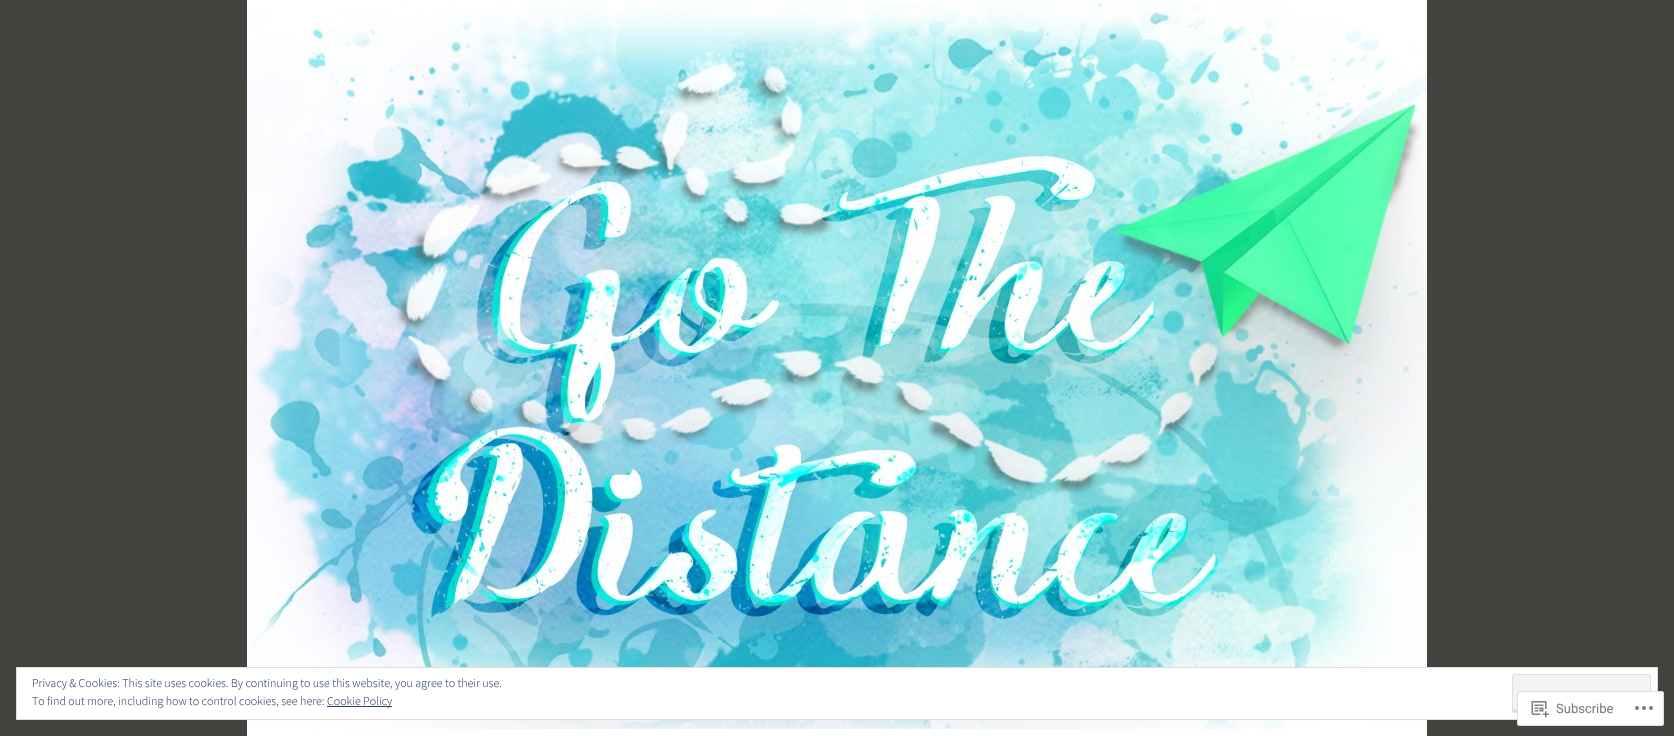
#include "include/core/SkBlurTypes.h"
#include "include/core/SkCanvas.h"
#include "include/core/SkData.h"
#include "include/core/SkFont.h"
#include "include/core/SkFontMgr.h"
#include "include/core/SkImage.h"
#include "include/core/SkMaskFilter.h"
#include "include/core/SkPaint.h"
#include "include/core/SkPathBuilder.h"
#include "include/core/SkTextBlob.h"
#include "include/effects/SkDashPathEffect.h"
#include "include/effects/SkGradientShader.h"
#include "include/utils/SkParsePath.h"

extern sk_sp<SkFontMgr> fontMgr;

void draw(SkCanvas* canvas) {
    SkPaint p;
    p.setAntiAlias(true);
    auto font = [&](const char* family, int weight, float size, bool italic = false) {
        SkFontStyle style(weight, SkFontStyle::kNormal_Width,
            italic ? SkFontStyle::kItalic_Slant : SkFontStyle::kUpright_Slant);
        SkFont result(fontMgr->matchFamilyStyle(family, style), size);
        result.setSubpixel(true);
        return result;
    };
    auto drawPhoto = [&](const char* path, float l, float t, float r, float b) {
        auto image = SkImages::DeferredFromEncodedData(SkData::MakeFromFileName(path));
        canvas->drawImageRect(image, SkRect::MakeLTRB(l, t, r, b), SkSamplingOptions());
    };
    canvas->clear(0xFF444340);
    drawPhoto("media/1.png", 247, 0, 1427, 729);
    p.setColor(0xFFFFFFFF);
    canvas->drawRect(SkRect::MakeLTRB(247, 729, 1427, 736), p);
    canvas->drawRect(SkRect::MakeLTRB(16.5f, 667.5f, 1657.5f, 719.5f), p);
    p.setStyle(SkPaint::kStroke_Style);
    p.setStrokeWidth(1);
    p.setColor(0xFFDEDEDE);
    canvas->drawRect(SkRect::MakeLTRB(16.5f, 667.5f, 1657.5f, 719.5f), p);
    auto font1 = font("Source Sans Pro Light", 300, 12);
    p.setStyle(SkPaint::kFill_Style);
    p.setColor(0xFF2E4467);
    canvas->drawString("Privacy & Cookies: This site uses cookies. By continuing to use this website, you agree to their use.", 32, 687, font1, p);
    p.setColor(0xFFF3F3F3);
    canvas->drawRoundRect(SkRect::MakeLTRB(1512, 674, 1651, 713), 3, 3, p);
    p.setColor(0xFFDBDBDB);
    canvas->drawPath(SkPathBuilder().moveTo(1513, 708).lineTo(1513, 710).cubicTo(1513, 711, 1514, 712, 1515, 712).lineTo(1648, 712).cubicTo(1649, 712, 1650, 711, 1650, 710).lineTo(1650, 708).cubicTo(1650, 709, 1649, 710, 1648, 710).lineTo(1515, 710).cubicTo(1514, 710, 1513, 709, 1513, 708).close().detach(), p);
    p.setStyle(SkPaint::kStroke_Style);
    p.setColor(0xFFDEDEDE);
    canvas->drawRoundRect(SkRect::MakeLTRB(1512.5f, 674.5f, 1650.5f, 712.5f), 2.5f, 2.5f, p);
    p.setStyle(SkPaint::kFill_Style);
    p.setColor(0xFF2E4467);
    canvas->drawString("To find out more, including how to control cookies, see here:", 32, 705, font1, p);
    canvas->drawRect(SkRect::MakeLTRB(327, 706, 392, 707), p);
    canvas->drawString("Cookie Policy", 327, 705, font1, p);
    p.setColor(0xFAFFFFFF);
    canvas->drawRoundRect(SkRect::MakeLTRB(1517, 691, 1664, 726), 3, 3, p);
    p.setStyle(SkPaint::kStroke_Style);
    p.setColor(0xFADCDCDE);
    canvas->drawRoundRect(SkRect::MakeLTRB(1517.5f, 691.5f, 1663.5f, 725.5f), 2.5f, 2.5f, p);
    drawPhoto("media/2.png", 1531, 701, 1549, 718);
    auto font2 = font("Roboto", 400, 13);
    p.setStyle(SkPaint::kFill_Style);
    p.setColor(0xFF7B7F84);
    canvas->drawString("Subscribe", 1556, 713, font2, p);
    drawPhoto("media/3.png", 1635, 706, 1653, 710);
}
